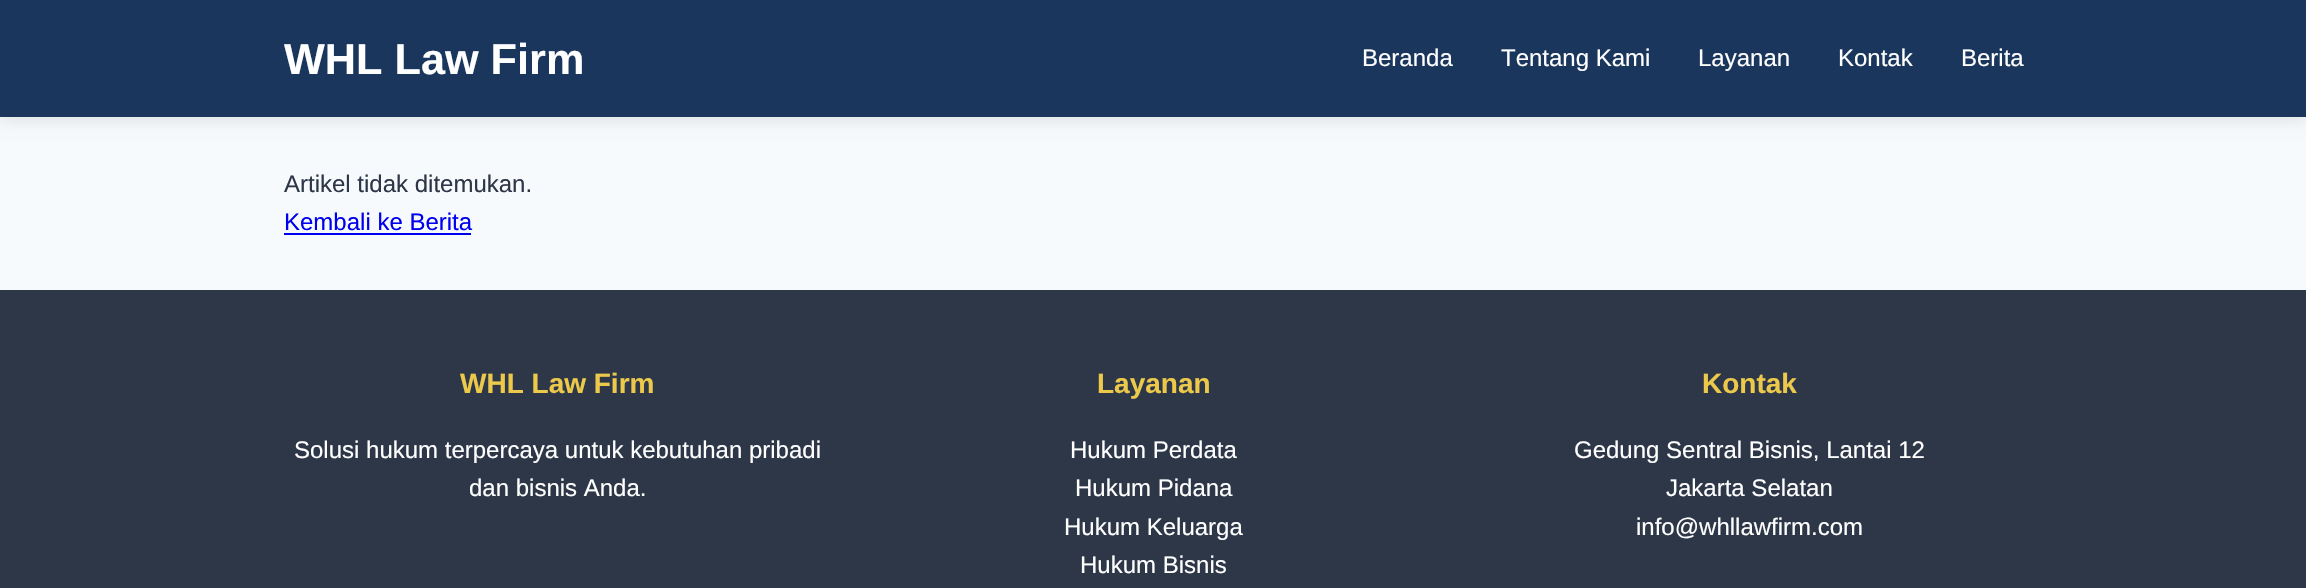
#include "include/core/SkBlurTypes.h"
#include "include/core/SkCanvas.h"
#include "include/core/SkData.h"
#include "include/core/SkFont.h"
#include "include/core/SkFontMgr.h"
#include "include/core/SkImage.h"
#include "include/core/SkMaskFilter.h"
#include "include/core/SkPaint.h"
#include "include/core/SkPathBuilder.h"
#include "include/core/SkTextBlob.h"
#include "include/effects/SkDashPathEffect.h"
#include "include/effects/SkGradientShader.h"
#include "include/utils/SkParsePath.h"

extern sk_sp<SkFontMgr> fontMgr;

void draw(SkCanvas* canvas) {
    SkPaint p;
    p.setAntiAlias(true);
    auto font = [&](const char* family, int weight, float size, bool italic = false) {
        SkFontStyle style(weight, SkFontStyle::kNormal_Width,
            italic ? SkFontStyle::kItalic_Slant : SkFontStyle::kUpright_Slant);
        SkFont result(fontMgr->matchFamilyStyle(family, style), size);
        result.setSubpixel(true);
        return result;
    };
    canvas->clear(0xFFF7FAFC);
    p.setColor(0x1A000000);
    p.setMaskFilter(SkMaskFilter::MakeBlur(kNormal_SkBlurStyle, 7.5f));
    canvas->drawRect(SkRect::MakeLTRB(0, 3, 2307, 120), p);
    p.setMaskFilter(nullptr);
    p.setColor(0xFF1A365D);
    canvas->drawRect(SkRect::MakeLTRB(0, 0, 2306, 117), p);
    auto font1 = font("Liberation Sans", 700, 43.25f);
    p.setColor(0xFFFFFFFF);
    canvas->drawString("WHL Law Firm", 284, 74, font1, p);
    auto font2 = font("Liberation Sans", 400, 24);
    {
        const struct { const char* s; float x, y; } items[] = {
            {"Beranda", 1362, 66},
            {"Tentang Kami", 1501, 66},
            {"Layanan", 1698, 66},
            {"Kontak", 1838, 66},
            {"Berita", 1961, 66},
        };
        for (auto [s, x, y] : items) {
            canvas->drawString(s, x, y, font2, p);
        }
    }
    p.setColor(0xFF2D3748);
    canvas->drawString("Artikel tidak ditemukan.", 284, 192, font2, p);
    p.setColor(0xFF0000EE);
    canvas->drawString("Kembali ke Berita", 284, 230, font2, p);
    canvas->drawRect(SkRect::MakeLTRB(284, 233, 471, 235), p);
    p.setColor(0xFF2D3748);
    canvas->drawRect(SkRect::MakeLTRB(0, 290, 2306, 588), p);
    auto font3 = font("Liberation Sans", 700, 28);
    p.setColor(0xFFECC94B);
    canvas->drawString("WHL Law Firm", 460, 393, font3, p);
    p.setColor(0xFFFFFFFF);
    canvas->drawString("Solusi hukum terpercaya untuk kebutuhan pribadi", 294, 458, font2, p);
    canvas->drawString("dan bisnis Anda.", 469, 496, font2, p);
    p.setColor(0xFFECC94B);
    canvas->drawString("Layanan", 1097, 393, font3, p);
    p.setColor(0xFFFFFFFF);
    {
        const struct { const char* s; float x, y; } items[] = {
            {"Hukum Perdata", 1070, 458},
            {"Hukum Pidana", 1075, 496},
            {"Hukum Keluarga", 1064, 535},
            {"Hukum Bisnis", 1080, 573},
        };
        for (auto [s, x, y] : items) {
            canvas->drawString(s, x, y, font2, p);
        }
    }
    p.setColor(0xFFECC94B);
    canvas->drawString("Kontak", 1702, 393, font3, p);
    p.setColor(0xFFFFFFFF);
    {
        const struct { const char* s; float x, y; } items[] = {
            {"Gedung Sentral Bisnis, Lantai 12", 1574, 458},
            {"Jakarta Selatan", 1666, 496},
            {"info@whllawfirm.com", 1636, 535},
        };
        for (auto [s, x, y] : items) {
            canvas->drawString(s, x, y, font2, p);
        }
    }
}
